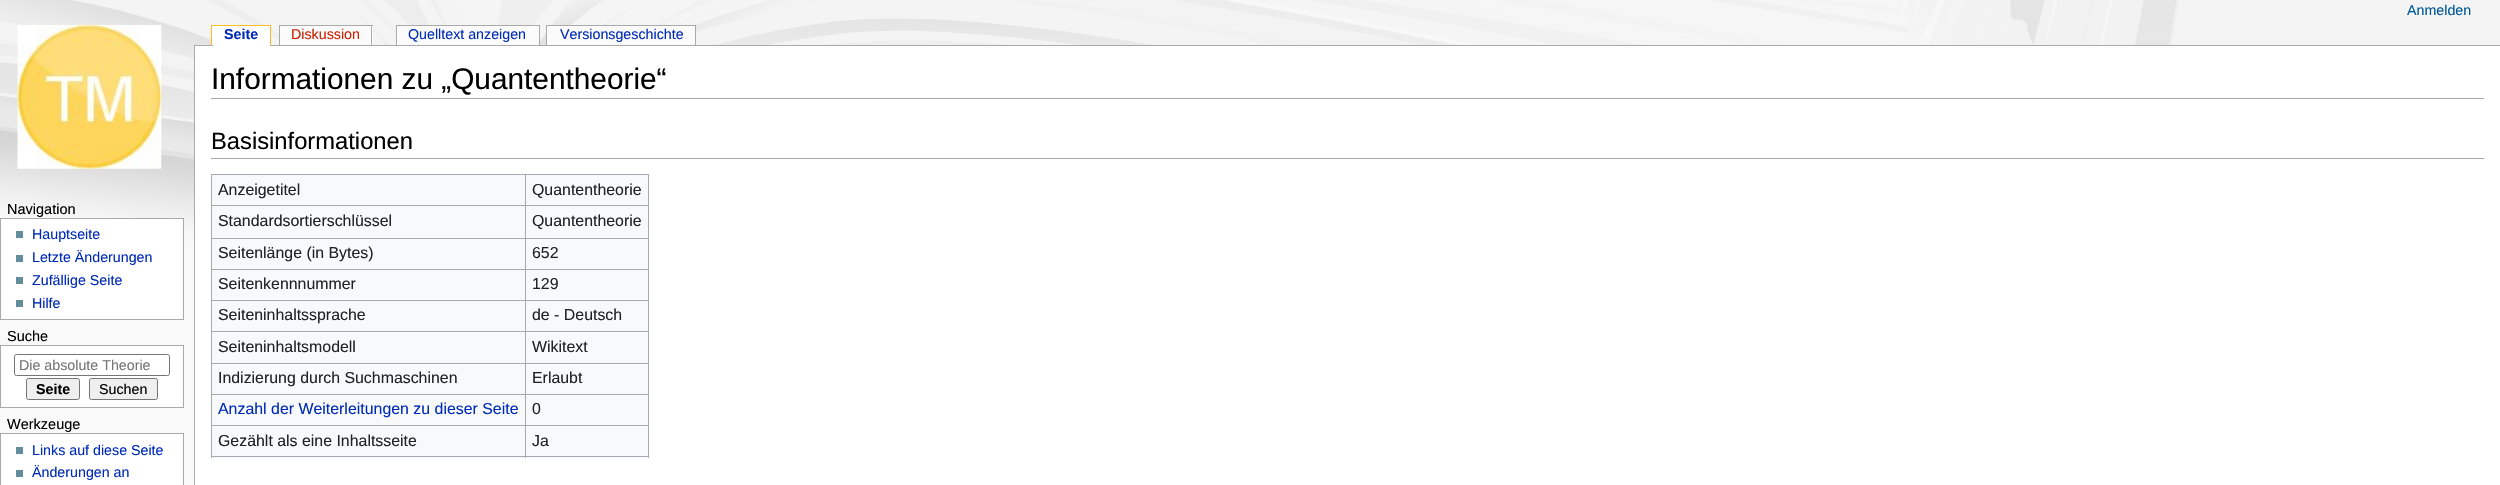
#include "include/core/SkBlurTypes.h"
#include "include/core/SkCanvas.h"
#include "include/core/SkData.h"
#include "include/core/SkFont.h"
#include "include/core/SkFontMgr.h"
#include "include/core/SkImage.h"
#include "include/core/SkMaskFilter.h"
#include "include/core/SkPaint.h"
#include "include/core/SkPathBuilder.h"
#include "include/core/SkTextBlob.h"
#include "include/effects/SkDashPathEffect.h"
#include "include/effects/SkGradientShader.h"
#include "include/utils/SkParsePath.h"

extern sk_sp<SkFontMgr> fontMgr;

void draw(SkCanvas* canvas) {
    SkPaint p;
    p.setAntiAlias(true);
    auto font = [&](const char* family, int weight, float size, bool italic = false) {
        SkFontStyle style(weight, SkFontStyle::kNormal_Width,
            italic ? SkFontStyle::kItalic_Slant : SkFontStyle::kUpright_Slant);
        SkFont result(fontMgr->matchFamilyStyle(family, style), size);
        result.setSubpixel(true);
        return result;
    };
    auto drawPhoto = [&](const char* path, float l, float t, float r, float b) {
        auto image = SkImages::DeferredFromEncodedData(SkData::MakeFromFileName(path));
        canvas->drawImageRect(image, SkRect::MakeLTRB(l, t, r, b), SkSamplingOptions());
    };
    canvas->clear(0xFFF9F9F9);
    p.setColor(0xFFF4F4F4);
    canvas->drawRect(SkRect::MakeLTRB(2178, 0, 2500, 45), p);
    drawPhoto("media/1.png", 0, 0, 2178, 263);
    auto font1 = font("Liberation Sans", 400, 14.25f);
    p.setColor(0xFF005896);
    canvas->drawString("Anmelden", 2407, 15, font1, p);
    drawPhoto("media/2.png", 17, 25, 162, 169);
    p.setColor(0xFFAAAAAA);
    canvas->drawRect(SkRect::MakeLTRB(194, 45, 2500, 46), p);
    p.setColor(0xFFFFFFFF);
    canvas->drawRect(SkRect::MakeLTRB(213, 26, 270, 46), p);
    auto font2 = font("Liberation Sans", 700, 14.25f);
    p.setColor(0xFF002BB8);
    canvas->drawString("Seite", 224, 39, font2, p);
    {
        const struct { float l, t, r, b; SkColor color; } items[] = {
            {212, 26, 213, 45, 0xFFFFFFFF},
            {211, 25, 271, 26, 0xFFFABD23},
            {270, 25, 271, 45, 0xFFFABD23},
            {211, 25, 212, 45, 0xFFFABD23},
            {280, 26, 371, 45, 0xFFFBFBFB},
        };
        for (auto [l, t, r, b, color] : items) {
            p.setColor(color);
            canvas->drawRect(SkRect::MakeLTRB(l, t, r, b), p);
        }
    }
    p.setColor(0xFFCC2200);
    canvas->drawString("Diskussion", 291, 39, font1, p);
    {
        const struct { float l, t, r, b; SkColor color; } items[] = {
            {372, 26, 373, 45, 0xFFFFFFFF},
            {279, 25, 373, 26, 0xFFAAAAAA},
            {371, 25, 372, 45, 0xFFAAAAAA},
            {279, 25, 280, 45, 0xFFAAAAAA},
            {398, 26, 539, 45, 0xFFFBFBFB},
        };
        for (auto [l, t, r, b, color] : items) {
            p.setColor(color);
            canvas->drawRect(SkRect::MakeLTRB(l, t, r, b), p);
        }
    }
    p.setColor(0xFF002BB8);
    canvas->drawString("Quelltext anzeigen", 408, 39, font1, p);
    {
        const struct { float l, t, r, b; SkColor color; } items[] = {
            {397, 26, 398, 45, 0xFFFFFFFF},
            {396, 25, 540, 26, 0xFFAAAAAA},
            {539, 25, 540, 45, 0xFFAAAAAA},
            {396, 25, 397, 45, 0xFFAAAAAA},
            {548, 26, 695, 45, 0xFFFBFBFB},
        };
        for (auto [l, t, r, b, color] : items) {
            p.setColor(color);
            canvas->drawRect(SkRect::MakeLTRB(l, t, r, b), p);
        }
    }
    p.setColor(0xFF002BB8);
    canvas->drawString("Versionsgeschichte", 560, 39, font1, p);
    {
        const struct { float l, t, r, b; SkColor color; } items[] = {
            {547, 26, 548, 45, 0xFFFFFFFF},
            {546, 25, 696, 26, 0xFFAAAAAA},
            {695, 25, 696, 45, 0xFFAAAAAA},
            {546, 25, 547, 45, 0xFFAAAAAA},
        };
        for (auto [l, t, r, b, color] : items) {
            p.setColor(color);
            canvas->drawRect(SkRect::MakeLTRB(l, t, r, b), p);
        }
    }
    auto font3 = font("Liberation Sans", 400, 14.5f);
    p.setColor(0xFF000000);
    canvas->drawString("Navigation", 7, 214, font3, p);
    p.setColor(0xFFFFFFFF);
    canvas->drawRect(SkRect::MakeLTRB(0.5f, 218.5f, 183.5f, 319.5f), p);
    p.setStyle(SkPaint::kStroke_Style);
    p.setStrokeWidth(1);
    p.setColor(0xFFAAAAAA);
    canvas->drawRect(SkRect::MakeLTRB(0.5f, 218.5f, 183.5f, 319.5f), p);
    p.setStyle(SkPaint::kFill_Style);
    p.setColor(0xFF638C9C);
    canvas->drawRect(SkRect::MakeLTRB(16, 231, 23, 238), p);
    p.setColor(0xFF002BB8);
    canvas->drawString("Hauptseite", 32, 239, font1, p);
    p.setColor(0xFF638C9C);
    canvas->drawRect(SkRect::MakeLTRB(16, 255, 23, 262), p);
    p.setColor(0xFF002BB8);
    canvas->drawString("Letzte Änderungen", 32, 262, font1, p);
    p.setColor(0xFF638C9C);
    canvas->drawRect(SkRect::MakeLTRB(16, 277, 23, 284), p);
    p.setColor(0xFF002BB8);
    canvas->drawString("Zufällige Seite", 32, 285, font1, p);
    p.setColor(0xFF638C9C);
    canvas->drawRect(SkRect::MakeLTRB(16, 300, 23, 307), p);
    p.setColor(0xFF002BB8);
    canvas->drawString("Hilfe", 32, 308, font1, p);
    p.setColor(0xFF000000);
    canvas->drawString("Suche", 7, 341, font3, p);
    p.setColor(0xFFFFFFFF);
    canvas->drawRect(SkRect::MakeLTRB(0.5f, 345.5f, 183.5f, 407.5f), p);
    p.setStyle(SkPaint::kStroke_Style);
    p.setColor(0xFFAAAAAA);
    canvas->drawRect(SkRect::MakeLTRB(0.5f, 345.5f, 183.5f, 407.5f), p);
    p.setColor(0xFF767676);
    canvas->drawRoundRect(SkRect::MakeLTRB(14.5f, 354.5f, 169.5f, 375.5f), 2, 2, p);
    canvas->save();
    canvas->clipRect(SkRect::MakeLTRB(19, 358, 150, 373));
    p.setStyle(SkPaint::kFill_Style);
    p.setColor(0xFF757575);
    canvas->drawString("Die absolute Theorie", 19, 370, font1, p);
    canvas->restore();
    p.setColor(0xFFEFEFEF);
    canvas->drawRoundRect(SkRect::MakeLTRB(26.5f, 378.5f, 79.5f, 399.5f), 2, 2, p);
    p.setStyle(SkPaint::kStroke_Style);
    p.setColor(0xFF767676);
    canvas->drawRoundRect(SkRect::MakeLTRB(26.5f, 378.5f, 79.5f, 399.5f), 2, 2, p);
    p.setStyle(SkPaint::kFill_Style);
    p.setColor(0xFF000000);
    canvas->drawString("Seite", 36, 394, font2, p);
    p.setColor(0xFFEFEFEF);
    canvas->drawRoundRect(SkRect::MakeLTRB(89.5f, 378.5f, 157.5f, 399.5f), 2, 2, p);
    p.setStyle(SkPaint::kStroke_Style);
    p.setColor(0xFF767676);
    canvas->drawRoundRect(SkRect::MakeLTRB(89.5f, 378.5f, 157.5f, 399.5f), 2, 2, p);
    p.setStyle(SkPaint::kFill_Style);
    p.setColor(0xFF000000);
    canvas->drawString("Suchen", 99, 394, font1, p);
    canvas->drawString("Werkzeuge", 7, 429, font3, p);
    p.setColor(0xFFFFFFFF);
    canvas->drawRect(SkRect::MakeLTRB(0.5f, 433.5f, 183.5f, 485.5f), p);
    p.setStyle(SkPaint::kStroke_Style);
    p.setColor(0xFFAAAAAA);
    canvas->drawRect(SkRect::MakeLTRB(0.5f, 433.5f, 183.5f, 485.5f), p);
    p.setStyle(SkPaint::kFill_Style);
    p.setColor(0xFF638C9C);
    canvas->drawRect(SkRect::MakeLTRB(16, 447, 23, 454), p);
    p.setColor(0xFF002BB8);
    canvas->drawString("Links auf diese Seite", 32, 455, font1, p);
    p.setColor(0xFF638C9C);
    canvas->drawRect(SkRect::MakeLTRB(16, 470, 23, 477), p);
    p.setColor(0xFF002BB8);
    canvas->drawString("Änderungen an", 32, 477, font1, p);
    {
        const struct { float l, t, r, b; SkColor color; } items[] = {
            {195, 46, 2500, 485, 0xFFFFFFFF},
            {194, 45, 195, 485, 0xFFAAAAAA},
            {211, 98, 2484, 99, 0xFFA2A9B1},
        };
        for (auto [l, t, r, b, color] : items) {
            p.setColor(color);
            canvas->drawRect(SkRect::MakeLTRB(l, t, r, b), p);
        }
    }
    auto font4 = font("Liberation Sans", 400, 29.8f);
    p.setColor(0xFF000000);
    canvas->drawString("Informationen zu „Quantentheorie“", 211, 89, font4, p);
    p.setColor(0xFFA2A9B1);
    canvas->drawRect(SkRect::MakeLTRB(211, 158, 2484, 159), p);
    auto font5 = font("Liberation Sans", 400, 23.75f);
    p.setColor(0xFF000000);
    canvas->drawString("Basisinformationen", 211, 149, font5, p);
    {
        const struct { float l, t, r, b; SkColor color; } items[] = {
            {212, 175, 648, 458, 0xFFF8F9FA},
            {211, 174, 649, 175, 0xFFA2A9B1},
            {648, 174, 649, 458, 0xFFA2A9B1},
            {211, 456, 649, 457, 0xFFA2A9B1},
            {211, 174, 212, 458, 0xFFA2A9B1},
        };
        for (auto [l, t, r, b, color] : items) {
            p.setColor(color);
            canvas->drawRect(SkRect::MakeLTRB(l, t, r, b), p);
        }
    }
    auto font6 = font("Liberation Sans", 400, 15.9f);
    p.setColor(0xFF222222);
    canvas->drawString("Anzeigetitel", 218, 195, font6, p);
    {
        const struct { float l, t, r, b; SkColor color; } items[] = {
            {525, 205, 649, 206, 0xFFA2A9B1},
            {525, 238, 649, 239, 0xFFA2A9B1},
            {525, 269, 649, 270, 0xFFA2A9B1},
            {525, 300, 649, 301, 0xFFA2A9B1},
            {525, 331, 649, 332, 0xFFA2A9B1},
            {525, 363, 649, 364, 0xFFA2A9B1},
            {525, 394, 649, 395, 0xFFA2A9B1},
            {525, 425, 649, 426, 0xFFA2A9B1},
            {525, 425, 526, 458, 0xFFA2A9B1},
            {211, 425, 526, 426, 0xFFA2A9B1},
            {525, 394, 526, 426, 0xFFA2A9B1},
            {211, 394, 526, 395, 0xFFA2A9B1},
            {525, 363, 526, 395, 0xFFA2A9B1},
            {211, 363, 526, 364, 0xFFA2A9B1},
            {525, 331, 526, 364, 0xFFA2A9B1},
            {211, 331, 526, 332, 0xFFA2A9B1},
            {525, 300, 526, 333, 0xFFA2A9B1},
            {211, 300, 526, 301, 0xFFA2A9B1},
            {525, 269, 526, 301, 0xFFA2A9B1},
            {211, 269, 526, 270, 0xFFA2A9B1},
            {525, 238, 526, 270, 0xFFA2A9B1},
            {211, 238, 526, 239, 0xFFA2A9B1},
            {525, 205, 526, 239, 0xFFA2A9B1},
            {211, 205, 526, 206, 0xFFA2A9B1},
            {525, 174, 526, 206, 0xFFA2A9B1},
        };
        for (auto [l, t, r, b, color] : items) {
            p.setColor(color);
            canvas->drawRect(SkRect::MakeLTRB(l, t, r, b), p);
        }
    }
    p.setColor(0xFF222222);
    {
        const struct { const char* s; float x, y; } items[] = {
            {"Quantentheorie", 532, 195},
            {"Standardsortierschlüssel", 218, 226},
            {"Quantentheorie", 532, 226},
            {"Seitenlänge (in Bytes)", 218, 258},
            {"652", 532, 258},
            {"Seitenkennnummer", 218, 289},
            {"129", 532, 289},
            {"Seiteninhaltssprache", 218, 320},
            {"de - Deutsch", 532, 320},
            {"Seiteninhaltsmodell", 218, 352},
            {"Wikitext", 532, 352},
            {"Indizierung durch Suchmaschinen", 218, 383},
            {"Erlaubt", 532, 383},
        };
        for (auto [s, x, y] : items) {
            canvas->drawString(s, x, y, font6, p);
        }
    }
    p.setColor(0xFF002BB8);
    canvas->drawString("Anzahl der Weiterleitungen zu dieser Seite", 218, 414, font6, p);
    p.setColor(0xFF222222);
    {
        const struct { const char* s; float x, y; } items[] = {
            {"0", 532, 414},
            {"Gezählt als eine Inhaltsseite", 218, 446},
            {"Ja", 532, 446},
        };
        for (auto [s, x, y] : items) {
            canvas->drawString(s, x, y, font6, p);
        }
    }
}
